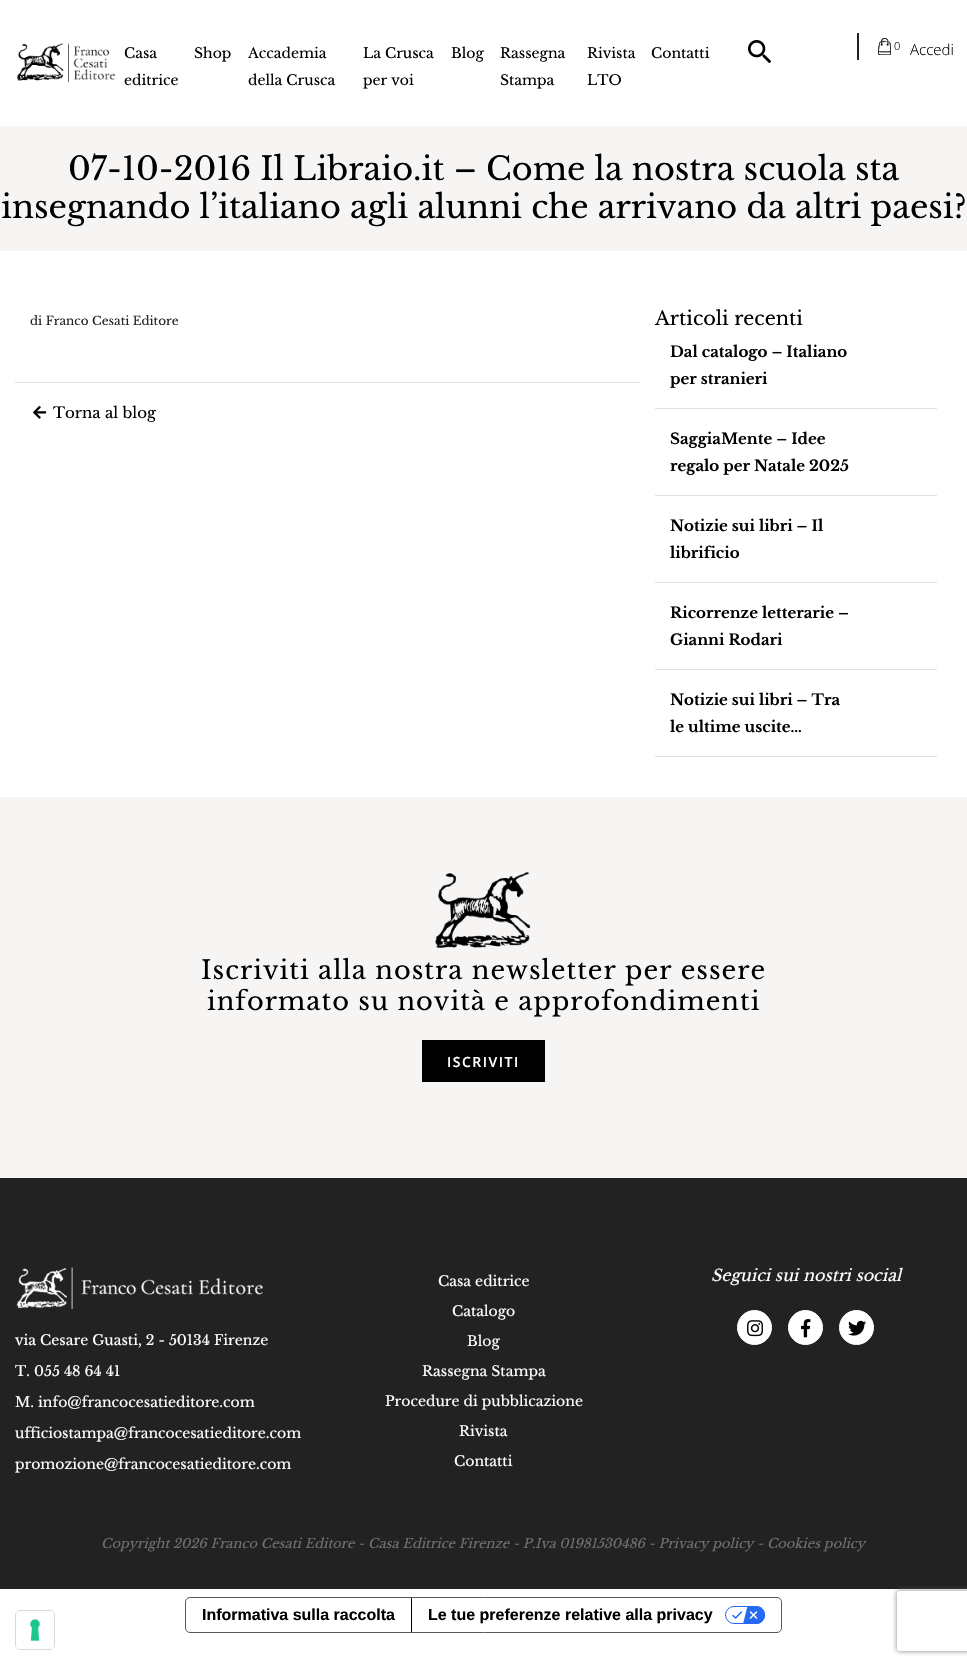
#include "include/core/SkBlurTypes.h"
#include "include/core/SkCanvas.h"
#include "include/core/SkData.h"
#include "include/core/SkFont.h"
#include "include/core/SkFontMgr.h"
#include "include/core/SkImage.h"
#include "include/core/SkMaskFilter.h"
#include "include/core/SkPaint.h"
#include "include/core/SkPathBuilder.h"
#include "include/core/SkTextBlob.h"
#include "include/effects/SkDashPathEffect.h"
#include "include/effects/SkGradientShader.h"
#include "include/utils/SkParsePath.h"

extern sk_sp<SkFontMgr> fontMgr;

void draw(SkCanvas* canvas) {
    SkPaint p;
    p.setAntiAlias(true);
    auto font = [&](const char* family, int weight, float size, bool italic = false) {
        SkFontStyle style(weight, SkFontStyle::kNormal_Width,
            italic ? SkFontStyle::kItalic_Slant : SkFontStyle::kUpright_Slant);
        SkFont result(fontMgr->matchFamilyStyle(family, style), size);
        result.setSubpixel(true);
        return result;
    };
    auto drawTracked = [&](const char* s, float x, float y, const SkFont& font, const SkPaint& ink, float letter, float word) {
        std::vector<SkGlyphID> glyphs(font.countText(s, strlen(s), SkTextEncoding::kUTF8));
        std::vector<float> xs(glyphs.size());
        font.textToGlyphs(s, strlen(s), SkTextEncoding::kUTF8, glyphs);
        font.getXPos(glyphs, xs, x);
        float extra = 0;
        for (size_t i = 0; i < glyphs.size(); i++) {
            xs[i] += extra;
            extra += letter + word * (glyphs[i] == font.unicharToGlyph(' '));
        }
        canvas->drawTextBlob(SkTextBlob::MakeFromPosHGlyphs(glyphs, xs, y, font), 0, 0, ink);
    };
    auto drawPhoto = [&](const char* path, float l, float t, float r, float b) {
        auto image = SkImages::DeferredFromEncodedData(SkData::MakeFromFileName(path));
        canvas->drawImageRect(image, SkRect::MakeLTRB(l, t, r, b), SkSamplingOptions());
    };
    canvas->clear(0xFFFFFFFF);
    drawPhoto("media/1.png", 16, 43, 116, 83);
    auto font1 = font("Libre Baskerville", 400, 14);
    p.setColor(0xFF000000);
    {
        const struct { const char* s; float x, y; } items[] = {
            {"Casa", 124, 58},
            {"editrice", 124, 85},
            {"Shop", 194, 58},
            {"Accademia", 248, 58},
            {"della Crusca", 248, 85},
            {"La Crusca", 363, 58},
            {"per voi", 363, 85},
            {"Blog", 451, 58},
            {"Rassegna", 500, 58},
            {"Stampa", 500, 85},
            {"Rivista", 587, 58},
            {"LTO", 587, 85},
            {"Contatti", 651, 58},
        };
        for (auto [s, x, y] : items) {
            canvas->drawString(s, x, y, font1, p);
        }
    }
    drawPhoto("media/2.png", 748, 40, 771, 63);
    p.setColor(0xFF222221);
    canvas->drawRect(SkRect::MakeLTRB(857, 33, 859, 60), p);
    drawPhoto("media/3.png", 878, 38, 891, 55);
    auto font2 = font("Open Sans", 300, 11);
    p.setColor(0xFF000000);
    canvas->drawString("0", 894, 50, font2, p);
    auto font3 = font("Open Sans", 300, 15);
    canvas->drawString("Accedi", 910, 55, font3, p);
    p.setColor(0xFFF7F4F4);
    canvas->drawRect(SkRect::MakeLTRB(0, 126, 967, 251), p);
    auto font4 = font("Libre Baskerville", 400, 32);
    p.setColor(0xFF000000);
    canvas->drawString("07-10-2016 Il Libraio.it – Come la nostra scuola sta", 68, 180, font4, p);
    canvas->drawString("insegnando l’italiano agli alunni che arrivano da altri paesi?", 1, 218, font4, p);
    auto font5 = font("Libre Baskerville", 400, 12);
    p.setColor(0xFF222221);
    canvas->drawString("di Franco Cesati Editore", 30, 325, font5, p);
    p.setColor(0xFFDEE2E6);
    canvas->drawRect(SkRect::MakeLTRB(15, 382, 640, 383), p);
    drawPhoto("media/4.png", 33, 406, 47, 419);
    auto font6 = font("Libre Baskerville", 400, 15);
    p.setColor(0xFF000000);
    canvas->drawString("Torna al blog", 53, 418, font6, p);
    auto font7 = font("Libre Baskerville", 400, 19.25f);
    canvas->drawString("Articoli recenti", 655, 325, font7, p);
    p.setColor(0xFFDEE2E6);
    canvas->drawRect(SkRect::MakeLTRB(655, 408, 937, 409), p);
    auto font8 = font("Libre Baskerville", 700, 15);
    p.setColor(0xFF000000);
    canvas->drawString("Dal catalogo – Italiano", 670, 357, font8, p);
    canvas->drawString("per stranieri", 670, 384, font8, p);
    p.setColor(0xFFDEE2E6);
    canvas->drawRect(SkRect::MakeLTRB(655, 495, 937, 496), p);
    p.setColor(0xFF000000);
    canvas->drawString("SaggiaMente – Idee", 670, 444, font8, p);
    canvas->drawString("regalo per Natale 2025", 670, 471, font8, p);
    p.setColor(0xFFDEE2E6);
    canvas->drawRect(SkRect::MakeLTRB(655, 582, 937, 583), p);
    p.setColor(0xFF000000);
    canvas->drawString("Notizie sui libri – Il", 670, 531, font8, p);
    canvas->drawString("librificio", 670, 558, font8, p);
    p.setColor(0xFFDEE2E6);
    canvas->drawRect(SkRect::MakeLTRB(655, 669, 937, 670), p);
    p.setColor(0xFF000000);
    canvas->drawString("Ricorrenze letterarie –", 670, 618, font8, p);
    canvas->drawString("Gianni Rodari", 670, 645, font8, p);
    p.setColor(0xFFDEE2E6);
    canvas->drawRect(SkRect::MakeLTRB(655, 756, 937, 757), p);
    p.setColor(0xFF000000);
    canvas->drawString("Notizie sui libri – Tra", 670, 705, font8, p);
    canvas->drawString("le ultime uscite…", 670, 732, font8, p);
    p.setColor(0xFFF7F4F4);
    canvas->drawRect(SkRect::MakeLTRB(0, 797, 967, 1178), p);
    drawPhoto("media/5.png", 435, 872, 531, 948);
    auto font9 = font("Libre Baskerville", 400, 25.6f);
    p.setColor(0xFF000000);
    drawTracked("Iscriviti alla nostra newsletter per essere", 201, 979, font9, p, 1, 0);
    drawTracked("informato su novità e approfondimenti", 207, 1010, font9, p, 1, 0);
    canvas->drawRect(SkRect::MakeLTRB(422, 1040, 545, 1082), p);
    auto font10 = font("Open Sans", 600, 14);
    p.setColor(0xFFFFFFFF);
    drawTracked("ISCRIVITI", 447, 1067, font10, p, 1.5f, 0);
    p.setColor(0xFF222222);
    canvas->drawRect(SkRect::MakeLTRB(0, 1178, 967, 1589), p);
    drawPhoto("media/6.png", 16, 1267, 263, 1310);
    p.setColor(0xFFFFFFFF);
    {
        const struct { const char* s; float x, y; } items[] = {
            {"via Cesare Guasti, 2 - 50134 Firenze", 15, 1345},
            {"T. 055 48 64 41", 15, 1376},
            {"M. info@francocesatieditore.com", 15, 1407},
            {"ufficiostampa@francocesatieditore.com", 15, 1438},
            {"promozione@francocesatieditore.com", 15, 1469},
            {"Casa editrice", 438, 1286},
            {"Catalogo", 452, 1316},
            {"Blog", 467, 1346},
            {"Rassegna Stampa", 422, 1376},
            {"Procedure di pubblicazione", 385, 1406},
            {"Rivista", 459, 1436},
            {"Contatti", 454, 1466},
        };
        for (auto [s, x, y] : items) {
            canvas->drawString(s, x, y, font1, p);
        }
    }
    auto font11 = font("Libre Baskerville", 400, 16, true);
    canvas->drawString("Seguici sui nostri social", 711, 1281, font11, p);
    canvas->drawCircle(754.5f, 1327.5f, 17, p);
    p.setStyle(SkPaint::kStroke_Style);
    p.setStrokeWidth(1);
    canvas->drawCircle(754.5f, 1327.5f, 17, p);
    drawPhoto("media/7.png", 747, 1320, 763, 1337);
    p.setStyle(SkPaint::kFill_Style);
    canvas->drawCircle(805.5f, 1327.5f, 17, p);
    p.setStyle(SkPaint::kStroke_Style);
    canvas->drawCircle(805.5f, 1327.5f, 17, p);
    drawPhoto("media/8.png", 801, 1319, 811, 1338);
    p.setStyle(SkPaint::kFill_Style);
    canvas->drawCircle(856.5f, 1327.5f, 17, p);
    p.setStyle(SkPaint::kStroke_Style);
    canvas->drawCircle(856.5f, 1327.5f, 17, p);
    drawPhoto("media/9.png", 848, 1320, 866, 1336);
    auto font12 = font("Libre Baskerville", 400, 13, true);
    p.setStyle(SkPaint::kFill_Style);
    p.setColor(0xFF707070);
    canvas->drawString("Copyright 2026 Franco Cesati Editore - Casa Editrice Firenze - P.Iva 01981530486 - Privacy policy - Cookies policy", 101, 1548, font12, p);
    p.setStyle(SkPaint::kStroke_Style);
    p.setColor(0xFFD9D9D9);
    canvas->drawRoundRect(SkRect::MakeLTRB(15.5f, 1610.5f, 54.5f, 1649.5f), 4.5f, 4.5f, p);
    p.setStyle(SkPaint::kFill_Style);
    p.setColor(0xFFFFFFFF);
    canvas->drawRoundRect(SkRect::MakeLTRB(16, 1611, 54, 1649), 4, 4, p);
    drawPhoto("media/10.png", 30, 1619, 40, 1641);
    p.setStyle(SkPaint::kStroke_Style);
    p.setColor(0xFF595959);
    canvas->drawRoundRect(SkRect::MakeLTRB(185.5f, 1597.5f, 781.5f, 1632.5f), 4.5f, 4.5f, p);
    auto font13 = font("Liberation Sans", 700, 16);
    p.setStyle(SkPaint::kFill_Style);
    p.setColor(0xFF000000);
    canvas->drawString("Informativa sulla raccolta", 202, 1620, font13, p);
    canvas->drawRect(SkRect::MakeLTRB(411, 1598, 412, 1632), p);
    canvas->drawString("Le tue preferenze relative alla privacy", 428, 1620, font13, p);
    drawPhoto("media/11.png", 725, 1606, 765, 1624);
    canvas->save();
    canvas->clipPath(SkPathBuilder(SkPathFillType::kEvenOdd).moveTo(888, 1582).lineTo(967, 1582).lineTo(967, 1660).lineTo(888, 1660).close().moveTo(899, 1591).lineTo(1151, 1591).cubicTo(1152, 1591, 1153, 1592, 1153, 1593).lineTo(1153, 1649).cubicTo(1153, 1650, 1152, 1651, 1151, 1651).lineTo(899, 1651).cubicTo(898, 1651, 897, 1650, 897, 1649).lineTo(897, 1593).cubicTo(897, 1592, 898, 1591, 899, 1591).close().detach(), true);
    p.setColor(0xFF808080);
    p.setMaskFilter(SkMaskFilter::MakeBlur(kNormal_SkBlurStyle, 2.5f));
    canvas->drawRoundRect(SkRect::MakeLTRB(897, 1591, 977, 1651), 2, 2, p);
    p.setMaskFilter(nullptr);
    canvas->restore();
}
